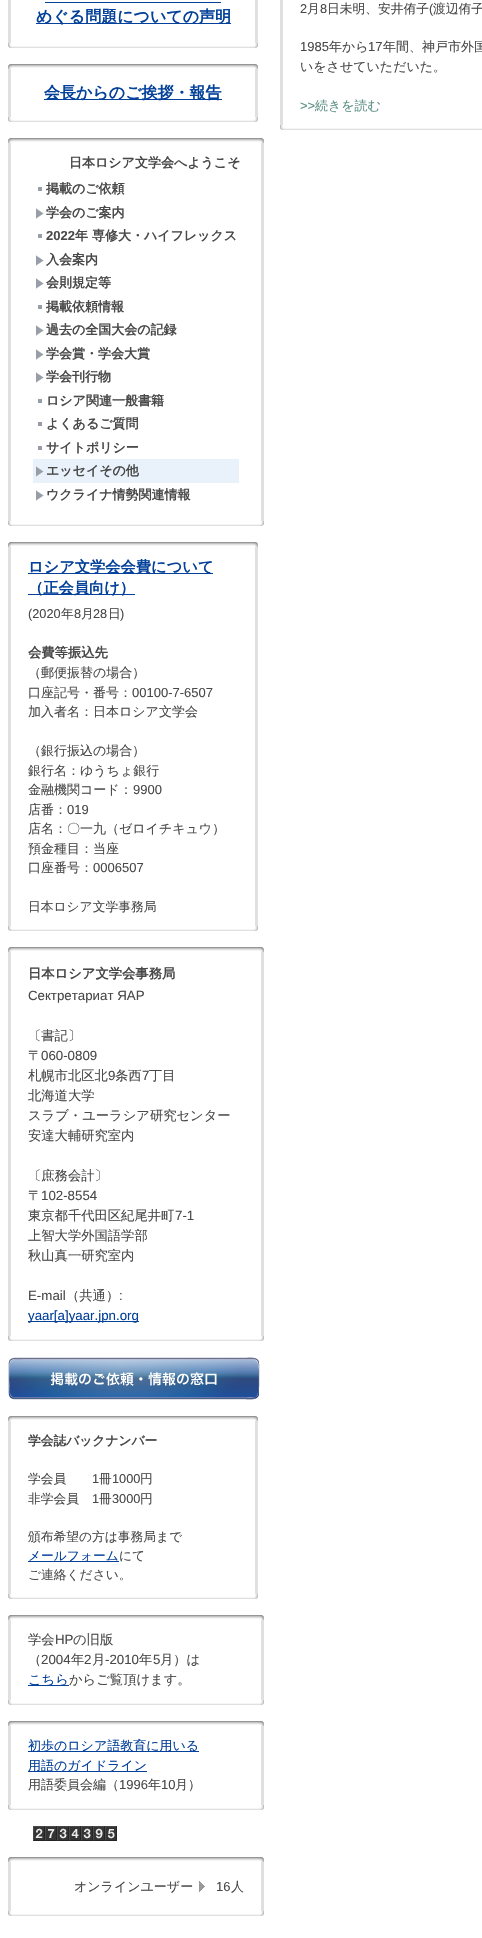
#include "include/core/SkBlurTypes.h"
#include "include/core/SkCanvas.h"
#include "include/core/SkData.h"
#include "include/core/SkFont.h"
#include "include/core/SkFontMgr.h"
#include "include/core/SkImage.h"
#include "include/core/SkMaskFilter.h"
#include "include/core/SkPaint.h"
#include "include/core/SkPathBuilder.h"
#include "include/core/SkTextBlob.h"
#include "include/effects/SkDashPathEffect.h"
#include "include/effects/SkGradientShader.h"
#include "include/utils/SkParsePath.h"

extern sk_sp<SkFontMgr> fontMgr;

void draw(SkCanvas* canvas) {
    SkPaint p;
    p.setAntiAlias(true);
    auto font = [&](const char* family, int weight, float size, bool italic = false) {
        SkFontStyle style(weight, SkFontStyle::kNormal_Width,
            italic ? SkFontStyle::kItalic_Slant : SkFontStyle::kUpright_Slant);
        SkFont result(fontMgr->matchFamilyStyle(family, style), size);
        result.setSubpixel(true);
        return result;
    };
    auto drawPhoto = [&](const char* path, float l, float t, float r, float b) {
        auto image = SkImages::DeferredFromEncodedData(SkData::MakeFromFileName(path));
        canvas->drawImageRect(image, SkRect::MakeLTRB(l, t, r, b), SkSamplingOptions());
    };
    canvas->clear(0xFFFFFFFF);
    p.setColor(0xFFE0E0E0);
    canvas->drawRect(SkRect::MakeLTRB(8, 0, 11, 43), p);
    p.setColor(0xFF04419A);
    canvas->drawRect(SkRect::MakeLTRB(36, 23, 231, 24), p);
    auto font1 = font("WenQuanYi Zen Hei", 700, 16);
    canvas->drawString("めぐる問題についての声明", 36, 22, font1, p);
    canvas->drawRect(SkRect::MakeLTRB(45, 2, 221, 3), p);
    p.setColor(0xFFE0E0E0);
    canvas->drawRect(SkRect::MakeLTRB(255, 0, 258, 43), p);
    drawPhoto("media/1.png", 8, 43, 13, 48);
    drawPhoto("media/2.png", 13, 46, 253, 48);
    drawPhoto("media/3.png", 253, 43, 258, 48);
    drawPhoto("media/4.png", 8, 64, 13, 69);
    drawPhoto("media/5.png", 13, 64, 253, 68);
    drawPhoto("media/6.png", 253, 64, 258, 69);
    canvas->drawRect(SkRect::MakeLTRB(8, 69, 11, 117), p);
    p.setColor(0xFF04419A);
    canvas->drawRect(SkRect::MakeLTRB(44, 99, 222, 100), p);
    canvas->drawString("会長からのご挨拶・報告", 44, 98, font1, p);
    p.setColor(0xFFE0E0E0);
    canvas->drawRect(SkRect::MakeLTRB(255, 69, 258, 117), p);
    drawPhoto("media/1.png", 8, 117, 13, 122);
    drawPhoto("media/2.png", 13, 120, 253, 122);
    drawPhoto("media/3.png", 253, 117, 258, 122);
    drawPhoto("media/4.png", 8, 138, 13, 143);
    drawPhoto("media/7.png", 13, 138, 259, 142);
    drawPhoto("media/6.png", 259, 138, 264, 143);
    canvas->drawRect(SkRect::MakeLTRB(8, 143, 11, 521), p);
    auto font2 = font("WenQuanYi Zen Hei", 700, 13);
    p.setColor(0xFF494949);
    canvas->drawString("日本ロシア文学会へようこそ", 69, 167, font2, p);
    p.setColor(0xFF989EA7);
    canvas->drawRect(SkRect::MakeLTRB(38, 187, 42, 191), p);
    p.setColor(0xFF494949);
    canvas->drawString("掲載のご依頼", 46, 193, font2, p);
    drawPhoto("media/8.png", 36, 208, 44, 219);
    canvas->drawString("学会のご案内", 46, 217, font2, p);
    p.setColor(0xFF989EA7);
    canvas->drawRect(SkRect::MakeLTRB(38, 234, 42, 238), p);
    auto font3 = font("Liberation Sans", 700, 13);
    p.setColor(0xFF494949);
    canvas->drawString("2022", 46, 240, font3, p);
    canvas->drawString("年 専修大・ハイフレックス", 75, 240, font2, p);
    drawPhoto("media/8.png", 36, 255, 44, 266);
    canvas->drawString("入会案内", 46, 264, font2, p);
    drawPhoto("media/8.png", 36, 278, 44, 289);
    canvas->drawString("会則規定等", 46, 287, font2, p);
    p.setColor(0xFF989EA7);
    canvas->drawRect(SkRect::MakeLTRB(38, 305, 42, 309), p);
    p.setColor(0xFF494949);
    canvas->drawString("掲載依頼情報", 46, 311, font2, p);
    drawPhoto("media/8.png", 36, 325, 44, 336);
    canvas->drawString("過去の全国大会の記録", 46, 334, font2, p);
    drawPhoto("media/8.png", 36, 349, 44, 360);
    canvas->drawString("学会賞・学会大賞", 46, 358, font2, p);
    drawPhoto("media/8.png", 36, 372, 44, 383);
    canvas->drawString("学会刊行物", 46, 381, font2, p);
    p.setColor(0xFF989EA7);
    canvas->drawRect(SkRect::MakeLTRB(38, 399, 42, 403), p);
    p.setColor(0xFF494949);
    canvas->drawString("ロシア関連一般書籍", 46, 405, font2, p);
    p.setColor(0xFF989EA7);
    canvas->drawRect(SkRect::MakeLTRB(38, 422, 42, 426), p);
    p.setColor(0xFF494949);
    canvas->drawString("よくあるご質問", 46, 428, font2, p);
    p.setColor(0xFF989EA7);
    canvas->drawRect(SkRect::MakeLTRB(38, 446, 42, 450), p);
    p.setColor(0xFF494949);
    canvas->drawString("サイトポリシー", 46, 452, font2, p);
    p.setColor(0xFFE9F2FB);
    canvas->drawRect(SkRect::MakeLTRB(33, 459, 239, 483), p);
    drawPhoto("media/9.png", 36, 466, 44, 477);
    p.setColor(0xFF494949);
    canvas->drawString("エッセイその他", 46, 475, font2, p);
    drawPhoto("media/8.png", 36, 490, 44, 501);
    canvas->drawString("ウクライナ情勢関連情報", 46, 499, font2, p);
    p.setColor(0xFFE0E0E0);
    canvas->drawRect(SkRect::MakeLTRB(261, 143, 264, 521), p);
    drawPhoto("media/1.png", 8, 521, 13, 526);
    drawPhoto("media/10.png", 13, 524, 259, 526);
    drawPhoto("media/3.png", 259, 521, 264, 526);
    drawPhoto("media/4.png", 8, 542, 13, 547);
    drawPhoto("media/5.png", 13, 542, 253, 546);
    drawPhoto("media/6.png", 253, 542, 258, 547);
    canvas->drawRect(SkRect::MakeLTRB(8, 547, 11, 926), p);
    p.setColor(0xFF04419A);
    canvas->drawRect(SkRect::MakeLTRB(28, 573, 213, 574), p);
    auto font4 = font("WenQuanYi Zen Hei", 700, 15.25f);
    canvas->drawString("ロシア文学会会費について", 28, 572, font4, p);
    canvas->drawRect(SkRect::MakeLTRB(28, 594, 135, 595), p);
    canvas->drawString("（正会員向け）", 28, 593, font4, p);
    auto font5 = font("Liberation Sans", 400, 12.75f);
    p.setColor(0xFF494949);
    canvas->drawString("(2020", 28, 618, font5, p);
    auto font6 = font("WenQuanYi Zen Hei", 500, 12.75f);
    canvas->drawString("年", 61, 618, font6, p);
    canvas->drawString("8", 74, 618, font5, p);
    canvas->drawString("月", 81, 618, font6, p);
    canvas->drawString("28", 93, 618, font5, p);
    canvas->drawString("日", 108, 618, font6, p);
    canvas->drawString(")", 120, 618, font5, p);
    auto font7 = font("WenQuanYi Zen Hei", 700, 13.3f);
    canvas->drawString("会費等振込先", 28, 657, font7, p);
    auto font8 = font("WenQuanYi Zen Hei", 500, 13);
    canvas->drawString("（郵便振替の場合）", 28, 677, font8, p);
    canvas->drawString("口座記号・番号：", 28, 697, font8, p);
    auto font9 = font("Liberation Sans", 400, 13);
    canvas->drawString("00100-7-6507", 132, 697, font9, p);
    {
        const struct { const char* s; float x, y; } items[] = {
            {"加入者名：日本ロシア文学会", 28, 716},
            {"（銀行振込の場合）", 28, 755},
            {"銀行名：ゆうちょ銀行", 28, 775},
            {"金融機関コード：", 28, 794},
        };
        for (auto [s, x, y] : items) {
            canvas->drawString(s, x, y, font8, p);
        }
    }
    canvas->drawString("9900", 133, 794, font9, p);
    canvas->drawString("店番：", 28, 814, font8, p);
    canvas->drawString("019", 67, 814, font9, p);
    {
        const struct { const char* s; float x, y; } items[] = {
            {"店名：〇一九（ゼロイチキュウ）", 28, 833},
            {"預金種目：当座", 28, 853},
            {"口座番号：", 28, 872},
        };
        for (auto [s, x, y] : items) {
            canvas->drawString(s, x, y, font8, p);
        }
    }
    canvas->drawString("0006507", 93, 872, font9, p);
    canvas->drawString("日本ロシア文学事務局", 28, 911, font6, p);
    p.setColor(0xFFE0E0E0);
    canvas->drawRect(SkRect::MakeLTRB(255, 547, 258, 926), p);
    drawPhoto("media/1.png", 8, 926, 13, 931);
    drawPhoto("media/2.png", 13, 929, 253, 931);
    drawPhoto("media/3.png", 253, 926, 258, 931);
    drawPhoto("media/4.png", 8, 947, 13, 952);
    drawPhoto("media/7.png", 13, 947, 259, 951);
    drawPhoto("media/6.png", 259, 947, 264, 952);
    canvas->drawRect(SkRect::MakeLTRB(8, 952, 11, 1336), p);
    p.setColor(0xFF494949);
    canvas->drawString("日本ロシア文学会事務局", 28, 978, font7, p);
    auto font10 = font("Liberation Sans", 400, 13.3f);
    canvas->drawString("Сектретариат ЯАР", 28, 1000, font10, p);
    auto font11 = font("WenQuanYi Zen Hei", 500, 13.3f);
    canvas->drawString("〔書記〕", 28, 1040, font11, p);
    canvas->drawString("〒", 28, 1060, font11, p);
    canvas->drawString("060-0809", 41, 1060, font10, p);
    canvas->drawString("札幌市北区北", 28, 1080, font11, p);
    canvas->drawString("9", 108, 1080, font10, p);
    canvas->drawString("条西", 115, 1080, font11, p);
    canvas->drawString("7", 142, 1080, font10, p);
    {
        const struct { const char* s; float x, y; } items[] = {
            {"丁目", 149, 1080},
            {"北海道大学", 28, 1100},
            {"スラブ・ユーラシア研究センター", 28, 1120},
            {"安達大輔研究室内", 28, 1140},
            {"〔庶務会計〕", 28, 1180},
            {"〒", 28, 1200},
        };
        for (auto [s, x, y] : items) {
            canvas->drawString(s, x, y, font11, p);
        }
    }
    canvas->drawString("102-8554", 41, 1200, font10, p);
    canvas->drawString("東京都千代田区紀尾井町", 28, 1220, font11, p);
    canvas->drawString("7-1", 175, 1220, font10, p);
    canvas->drawString("上智大学外国語学部", 28, 1240, font11, p);
    canvas->drawString("秋山真一研究室内", 28, 1260, font11, p);
    canvas->drawString("E-mail", 28, 1300, font10, p);
    canvas->drawString("（共通）", 66, 1300, font11, p);
    canvas->drawString(":", 119, 1300, font10, p);
    p.setColor(0xFF04419A);
    canvas->drawRect(SkRect::MakeLTRB(28, 1321, 139, 1322), p);
    canvas->drawString("yaar[a]yaar.jpn.org", 28, 1320, font10, p);
    p.setColor(0xFFE0E0E0);
    canvas->drawRect(SkRect::MakeLTRB(261, 952, 264, 1336), p);
    drawPhoto("media/1.png", 8, 1336, 13, 1341);
    drawPhoto("media/10.png", 13, 1339, 259, 1341);
    drawPhoto("media/3.png", 259, 1336, 264, 1341);
    drawPhoto("media/11.png", 8, 1357, 260, 1400);
    drawPhoto("media/4.png", 8, 1416, 13, 1421);
    drawPhoto("media/5.png", 13, 1416, 253, 1420);
    drawPhoto("media/6.png", 253, 1416, 258, 1421);
    canvas->drawRect(SkRect::MakeLTRB(8, 1421, 11, 1594), p);
    auto font12 = font("WenQuanYi Zen Hei", 700, 12.75f);
    p.setColor(0xFF494949);
    canvas->drawString("学会誌バックナンバー", 28, 1445, font12, p);
    canvas->drawString("学会員", 28, 1483, font6, p);
    canvas->drawString("1", 92, 1483, font5, p);
    canvas->drawString("冊", 99, 1483, font6, p);
    canvas->drawString("1000", 112, 1483, font5, p);
    canvas->drawString("円", 140, 1483, font6, p);
    canvas->drawString("非学会員", 28, 1503, font6, p);
    canvas->drawString("1", 92, 1503, font5, p);
    canvas->drawString("冊", 99, 1503, font6, p);
    canvas->drawString("3000", 112, 1503, font5, p);
    canvas->drawString("円", 140, 1503, font6, p);
    canvas->drawString("頒布希望の方は事務局まで", 28, 1541, font6, p);
    p.setColor(0xFF04419A);
    canvas->drawRect(SkRect::MakeLTRB(28, 1561, 119, 1562), p);
    canvas->drawString("メールフォーム", 28, 1560, font6, p);
    p.setColor(0xFF494949);
    canvas->drawString("にて", 119, 1560, font6, p);
    canvas->drawString("ご連絡ください。", 28, 1579, font6, p);
    p.setColor(0xFFE0E0E0);
    canvas->drawRect(SkRect::MakeLTRB(255, 1421, 258, 1594), p);
    drawPhoto("media/1.png", 8, 1594, 13, 1599);
    drawPhoto("media/2.png", 13, 1597, 253, 1599);
    drawPhoto("media/3.png", 253, 1594, 258, 1599);
    drawPhoto("media/4.png", 8, 1615, 13, 1620);
    drawPhoto("media/7.png", 13, 1615, 259, 1619);
    drawPhoto("media/6.png", 259, 1615, 264, 1620);
    canvas->drawRect(SkRect::MakeLTRB(8, 1620, 11, 1700), p);
    p.setColor(0xFF494949);
    canvas->drawString("学会", 28, 1644, font11, p);
    canvas->drawString("HP", 55, 1644, font10, p);
    canvas->drawString("の旧版", 73, 1644, font11, p);
    canvas->drawString("（", 28, 1664, font11, p);
    canvas->drawString("2004", 41, 1664, font10, p);
    canvas->drawString("年", 71, 1664, font11, p);
    canvas->drawString("2", 84, 1664, font10, p);
    canvas->drawString("月", 92, 1664, font11, p);
    canvas->drawString("-2010", 105, 1664, font10, p);
    canvas->drawString("年", 139, 1664, font11, p);
    canvas->drawString("5", 153, 1664, font10, p);
    canvas->drawString("月）は", 160, 1664, font11, p);
    p.setColor(0xFF04419A);
    canvas->drawRect(SkRect::MakeLTRB(28, 1685, 69, 1686), p);
    canvas->drawString("こちら", 28, 1684, font11, p);
    p.setColor(0xFF494949);
    canvas->drawString("からご覧頂けます。", 69, 1684, font11, p);
    p.setColor(0xFFE0E0E0);
    canvas->drawRect(SkRect::MakeLTRB(261, 1620, 264, 1700), p);
    drawPhoto("media/1.png", 8, 1700, 13, 1705);
    drawPhoto("media/10.png", 13, 1703, 259, 1705);
    drawPhoto("media/3.png", 259, 1700, 264, 1705);
    drawPhoto("media/4.png", 8, 1721, 13, 1726);
    drawPhoto("media/7.png", 13, 1721, 259, 1725);
    drawPhoto("media/6.png", 259, 1721, 264, 1726);
    canvas->drawRect(SkRect::MakeLTRB(8, 1726, 11, 1805), p);
    p.setColor(0xFF04419A);
    canvas->drawRect(SkRect::MakeLTRB(28, 1751, 199, 1752), p);
    canvas->drawString("初歩のロシア語教育に用いる", 28, 1750, font8, p);
    canvas->drawRect(SkRect::MakeLTRB(28, 1771, 147, 1772), p);
    canvas->drawString("用語のガイドライン", 28, 1770, font8, p);
    p.setColor(0xFF494949);
    canvas->drawString("用語委員会編（", 28, 1789, font8, p);
    canvas->drawString("1996", 119, 1789, font9, p);
    canvas->drawString("年", 148, 1789, font8, p);
    canvas->drawString("10", 161, 1789, font9, p);
    canvas->drawString("月）", 175, 1789, font8, p);
    p.setColor(0xFFE0E0E0);
    canvas->drawRect(SkRect::MakeLTRB(261, 1726, 264, 1805), p);
    drawPhoto("media/1.png", 8, 1805, 13, 1810);
    drawPhoto("media/10.png", 13, 1808, 259, 1810);
    drawPhoto("media/3.png", 259, 1805, 264, 1810);
    drawPhoto("media/12.png", 33, 1826, 45, 1841);
    drawPhoto("media/13.png", 45, 1826, 57, 1841);
    drawPhoto("media/14.png", 57, 1826, 69, 1841);
    drawPhoto("media/15.png", 69, 1826, 81, 1841);
    drawPhoto("media/14.png", 81, 1826, 93, 1841);
    drawPhoto("media/16.png", 93, 1826, 105, 1841);
    drawPhoto("media/17.png", 105, 1826, 117, 1841);
    drawPhoto("media/4.png", 8, 1857, 13, 1862);
    drawPhoto("media/7.png", 13, 1857, 259, 1861);
    drawPhoto("media/6.png", 259, 1857, 264, 1862);
    canvas->drawRect(SkRect::MakeLTRB(8, 1862, 11, 1911), p);
    drawPhoto("media/18.png", 199, 1881, 205, 1892);
    p.setColor(0xFF494949);
    canvas->drawString("オンラインユーザー", 74, 1891, font8, p);
    canvas->drawString("16", 216, 1891, font9, p);
    canvas->drawString("人", 231, 1891, font8, p);
    p.setColor(0xFFE0E0E0);
    canvas->drawRect(SkRect::MakeLTRB(261, 1862, 264, 1911), p);
    drawPhoto("media/1.png", 8, 1911, 13, 1916);
    drawPhoto("media/10.png", 13, 1914, 259, 1916);
    drawPhoto("media/3.png", 259, 1911, 264, 1916);
    canvas->drawRect(SkRect::MakeLTRB(280, 0, 283, 125), p);
    p.setColor(0xFF494949);
    canvas->drawString("2", 300, 13, font5, p);
    canvas->drawString("月", 307, 13, font6, p);
    canvas->drawString("8", 320, 13, font5, p);
    canvas->drawString("日未明、安井侑子", 327, 13, font6, p);
    canvas->drawString("(", 429, 13, font5, p);
    canvas->drawString("渡辺侑子", 433, 13, font6, p);
    canvas->drawString("1985", 300, 51, font9, p);
    canvas->drawString("年から", 329, 51, font8, p);
    canvas->drawString("17", 368, 51, font9, p);
    canvas->drawString("年間、神戸市外国", 383, 51, font8, p);
    canvas->drawString("いをさせていただいた。", 300, 71, font8, p);
    p.setColor(0xFF5C9084);
    canvas->drawString(">>", 300, 110, font9, p);
    canvas->drawString("続きを読む", 315, 110, font8, p);
    drawPhoto("media/1.png", 280, 125, 285, 130);
    drawPhoto("media/19.png", 285, 128, 482, 130);
}
